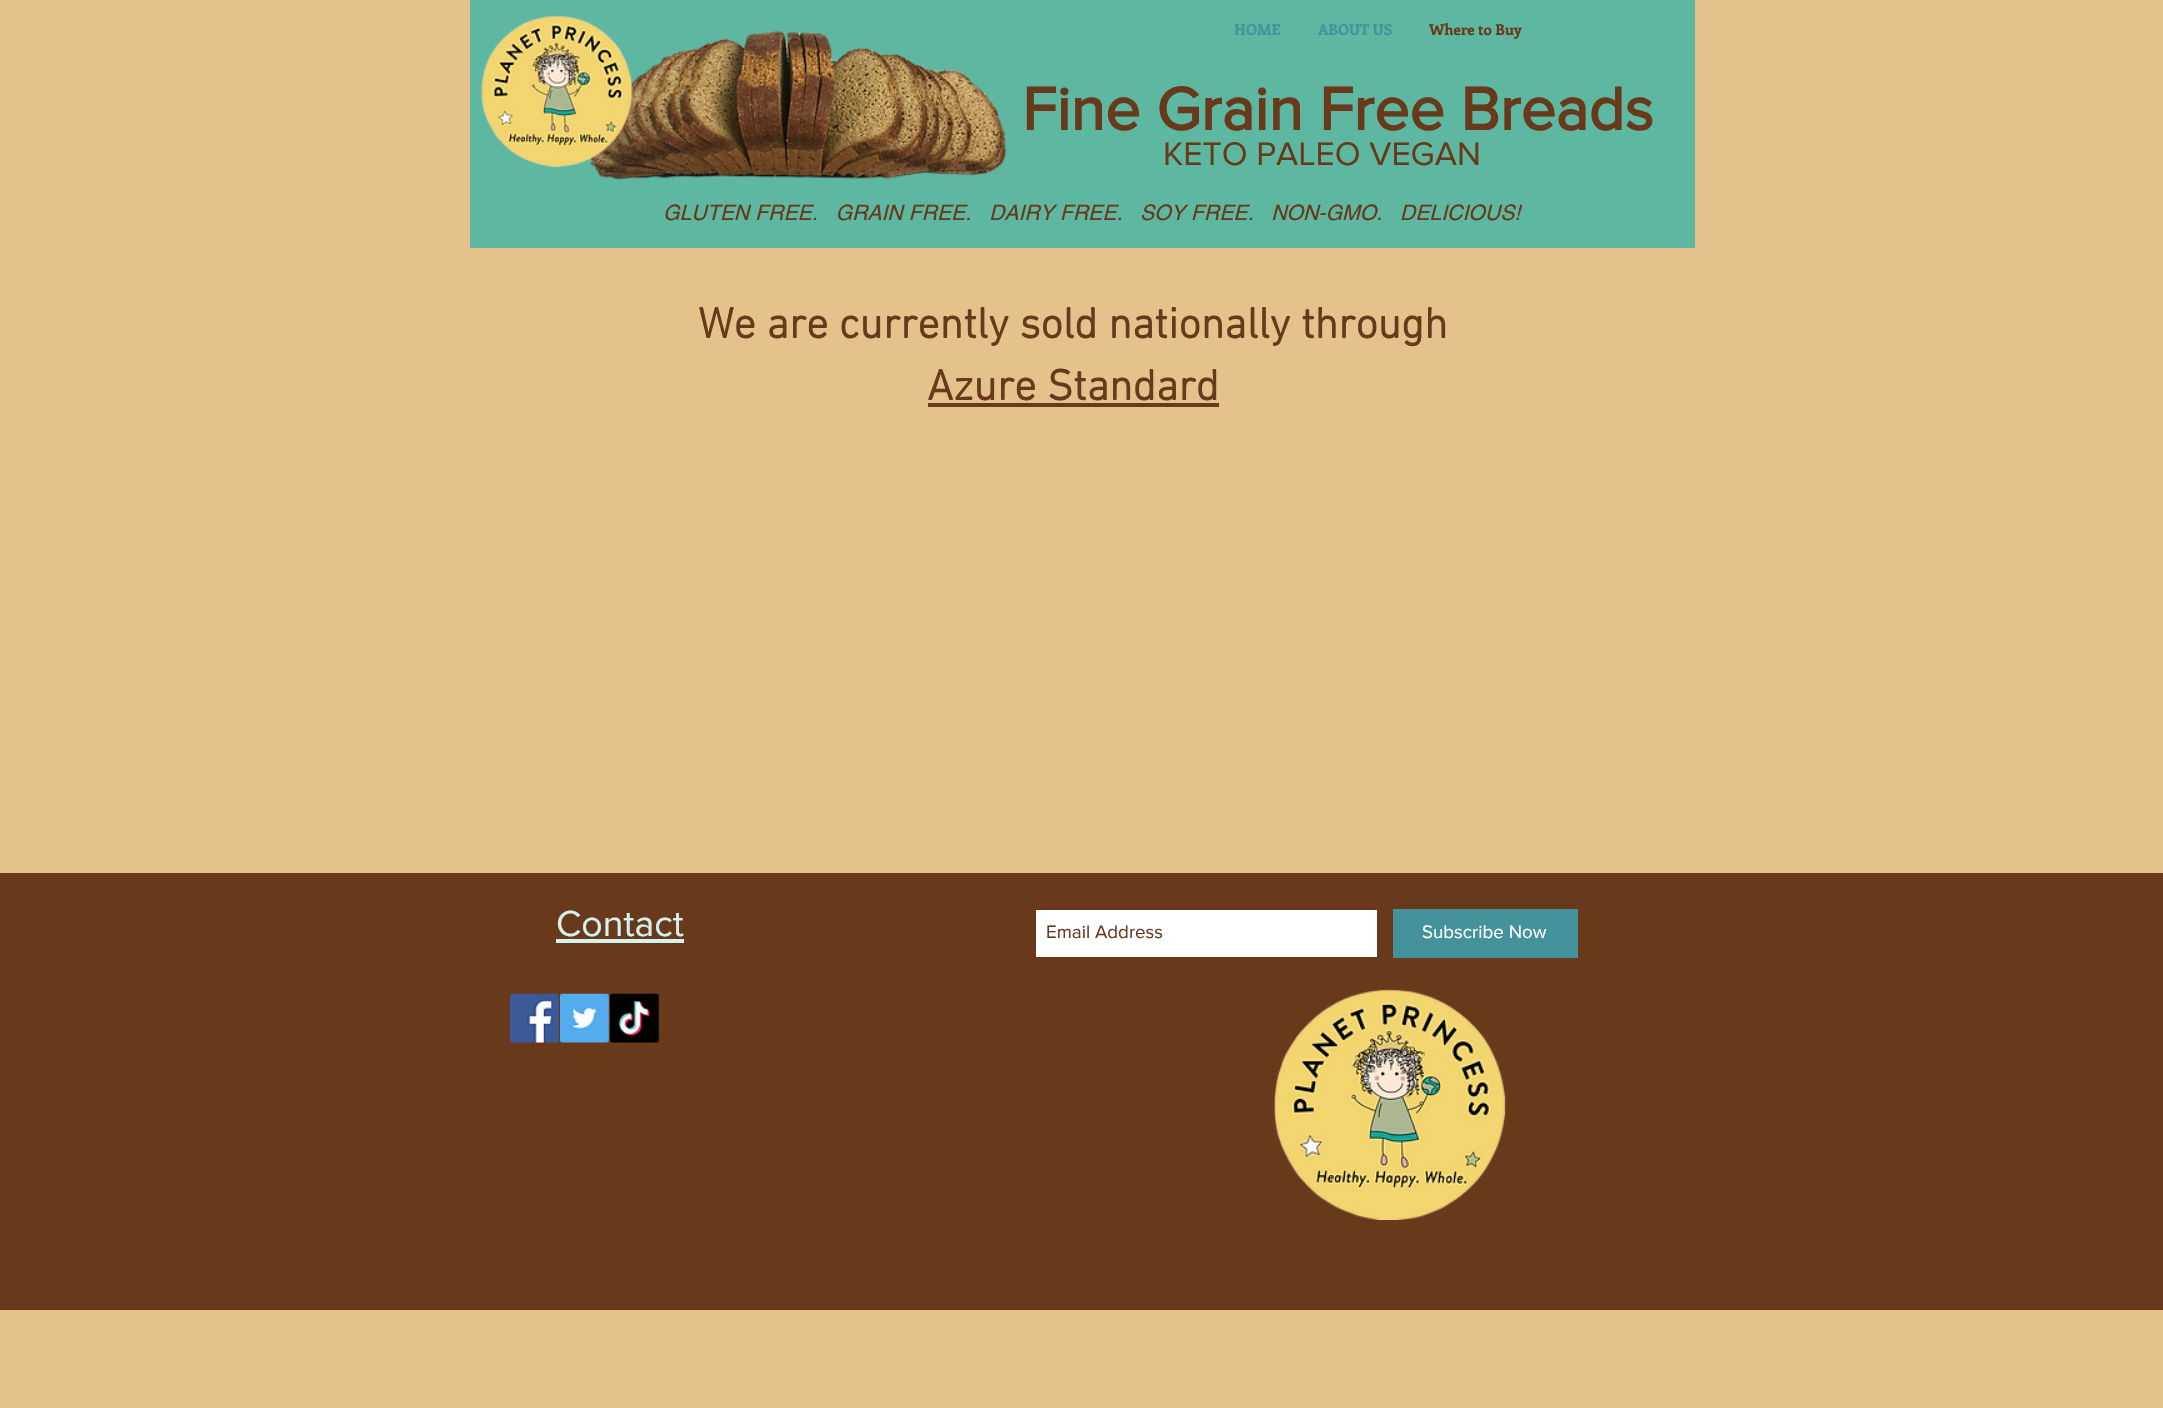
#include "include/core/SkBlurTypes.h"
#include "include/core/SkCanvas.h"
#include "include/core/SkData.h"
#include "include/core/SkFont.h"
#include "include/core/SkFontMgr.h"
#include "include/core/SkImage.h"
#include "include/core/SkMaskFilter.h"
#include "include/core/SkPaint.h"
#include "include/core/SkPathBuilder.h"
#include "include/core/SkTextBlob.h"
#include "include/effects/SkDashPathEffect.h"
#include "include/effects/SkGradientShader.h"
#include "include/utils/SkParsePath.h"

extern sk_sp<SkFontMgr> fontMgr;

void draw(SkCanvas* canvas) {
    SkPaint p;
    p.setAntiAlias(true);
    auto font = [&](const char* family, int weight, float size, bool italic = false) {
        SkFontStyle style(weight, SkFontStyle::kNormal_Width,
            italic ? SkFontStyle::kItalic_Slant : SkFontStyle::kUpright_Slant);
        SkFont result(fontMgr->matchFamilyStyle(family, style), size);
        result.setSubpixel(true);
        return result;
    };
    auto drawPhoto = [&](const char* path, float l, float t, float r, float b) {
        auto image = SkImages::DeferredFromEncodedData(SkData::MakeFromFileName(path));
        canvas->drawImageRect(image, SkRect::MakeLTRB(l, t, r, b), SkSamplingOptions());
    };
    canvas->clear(0xFFE5C28C);
    p.setColor(0xFF5EB8A1);
    canvas->drawRect(SkRect::MakeLTRB(470, 0, 1695, 248), p);
    drawPhoto("media/2.png", 589, 31, 1007, 180);
    drawPhoto("media/1.png", 481, 15, 633, 168);
    auto font1 = font("Enriqueta", 700, 15);
    p.setColor(0xFF43929C);
    canvas->drawString("HOME", 1234, 35, font1, p);
    canvas->drawString("ABOUT US", 1318, 35, font1, p);
    p.setColor(0xFF68391A);
    canvas->drawString("Where to Buy", 1429, 35, font1, p);
    auto font2 = font("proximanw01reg", 700, 62.5f);
    canvas->drawString("Fine Grain Free Breads", 1022, 130, font2, p);
    auto font3 = font("proximanw01reg", 400, 33.75f);
    canvas->drawString("KETO PALEO VEGAN", 1163, 165, font3, p);
    auto font4 = font("helvetica", 400, 21.25f, true);
    canvas->drawString("GLUTEN FREE.   GRAIN FREE.   DAIRY FREE.   SOY FREE.   NON-GMO.   DELICIOUS!", 663, 220, font4, p);
    auto font5 = font("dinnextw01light", 700, 43.75f);
    canvas->drawString("We are currently sold nationally through", 698, 338, font5, p);
    canvas->drawString("Azure Standard", 927, 400, font5, p);
    canvas->drawRect(SkRect::MakeLTRB(928, 403, 1219, 407), p);
    canvas->drawRect(SkRect::MakeLTRB(0, 873, 2163, 1310), p);
    auto font6 = font("proximanw01reg", 400, 37.5f);
    p.setColor(0xFFD3F2F0);
    canvas->drawString("Contact", 556, 936, font6, p);
    canvas->drawRect(SkRect::MakeLTRB(556, 939, 684, 943), p);
    p.setColor(0xFFFFFFFF);
    canvas->drawRect(SkRect::MakeLTRB(1036, 910, 1377, 957), p);
    auto font7 = font("proximanw01reg", 400, 18.75f);
    p.setColor(0xFF68391A);
    canvas->drawString("Email Address", 1046, 938, font7, p);
    p.setColor(0xFF43929C);
    canvas->drawRect(SkRect::MakeLTRB(1393, 909, 1578, 958), p);
    p.setColor(0xFFFFFFFF);
    canvas->drawString("Subscribe Now", 1422, 938, font7, p);
    drawPhoto("media/3.png", 510, 993, 559, 1043);
    drawPhoto("media/4.png", 560, 993, 609, 1043);
    drawPhoto("media/5.png", 610, 993, 659, 1043);
    drawPhoto("media/6.png", 1274, 989, 1506, 1220);
}
